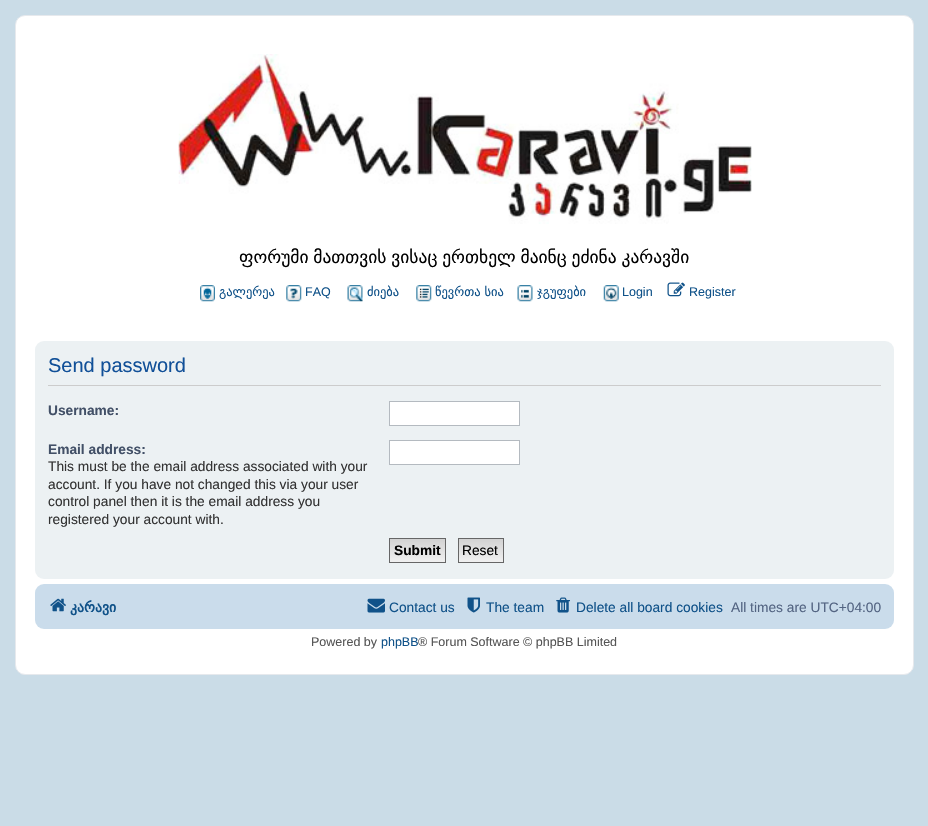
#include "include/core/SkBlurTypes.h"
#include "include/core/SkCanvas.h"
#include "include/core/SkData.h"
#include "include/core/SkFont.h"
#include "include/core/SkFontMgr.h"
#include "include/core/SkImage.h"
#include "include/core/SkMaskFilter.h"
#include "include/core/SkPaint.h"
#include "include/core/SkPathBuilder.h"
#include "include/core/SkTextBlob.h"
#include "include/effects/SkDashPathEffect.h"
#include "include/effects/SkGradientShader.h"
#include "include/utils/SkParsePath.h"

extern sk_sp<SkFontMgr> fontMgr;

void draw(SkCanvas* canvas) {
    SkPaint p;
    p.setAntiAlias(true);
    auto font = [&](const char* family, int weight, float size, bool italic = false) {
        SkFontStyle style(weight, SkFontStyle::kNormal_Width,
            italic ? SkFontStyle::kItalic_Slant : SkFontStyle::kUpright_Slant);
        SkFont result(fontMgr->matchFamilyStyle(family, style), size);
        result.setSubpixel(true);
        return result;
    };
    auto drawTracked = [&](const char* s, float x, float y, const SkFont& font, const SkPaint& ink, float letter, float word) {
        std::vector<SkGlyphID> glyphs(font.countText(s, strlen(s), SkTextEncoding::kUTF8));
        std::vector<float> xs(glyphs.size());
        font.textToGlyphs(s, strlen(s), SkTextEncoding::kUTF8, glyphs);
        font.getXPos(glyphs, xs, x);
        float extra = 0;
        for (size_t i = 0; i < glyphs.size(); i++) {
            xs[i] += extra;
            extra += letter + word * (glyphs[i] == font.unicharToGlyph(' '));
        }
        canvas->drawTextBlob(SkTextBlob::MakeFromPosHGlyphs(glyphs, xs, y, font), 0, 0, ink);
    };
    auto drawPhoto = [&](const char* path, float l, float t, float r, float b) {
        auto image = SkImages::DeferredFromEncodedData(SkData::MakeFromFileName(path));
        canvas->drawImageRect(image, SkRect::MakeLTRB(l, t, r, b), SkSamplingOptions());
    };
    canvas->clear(0xFFCADCE7);
    p.setColor(0xFFFFFFFF);
    canvas->drawRoundRect(SkRect::MakeLTRB(15.5f, 15.5f, 913.5f, 674.5f), 9.5f, 9.5f, p);
    p.setStyle(SkPaint::kStroke_Style);
    p.setStrokeWidth(1);
    p.setColor(0xFFE6E9ED);
    canvas->drawRoundRect(SkRect::MakeLTRB(15.5f, 15.5f, 913.5f, 674.5f), 9.5f, 9.5f, p);
    drawPhoto("media/1.png", 178, 54, 752, 224);
    auto font1 = font("DejaVu Sans", 400, 17.5f);
    p.setStyle(SkPaint::kFill_Style);
    p.setColor(0xFF000000);
    drawTracked("ფორუმი მათთვის ვისაც ერთხელ მაინც ეძინა კარავში", 239, 263, font1, p, 0, -0.75f);
    drawPhoto("media/2.png", 200, 285, 215, 302);
    auto font2 = font("DejaVu Sans", 400, 12.5f);
    p.setColor(0xFF105289);
    canvas->drawString("გალერეა", 219, 296, font2, p);
    drawPhoto("media/3.png", 286, 285, 302, 302);
    auto font3 = font("Liberation Sans", 400, 12.5f);
    canvas->drawString("FAQ", 305, 296, font3, p);
    drawPhoto("media/4.png", 347, 285, 363, 302);
    canvas->drawString("ძიება", 367, 296, font2, p);
    drawPhoto("media/5.png", 416, 285, 432, 302);
    canvas->drawString("წევრთა სია", 435, 296, font2, p);
    drawPhoto("media/6.png", 517, 285, 533, 302);
    canvas->drawString("ჯგუფები", 537, 296, font2, p);
    drawPhoto("media/7.png", 603, 285, 619, 302);
    canvas->drawString("Login", 622, 296, font3, p);
    drawPhoto("media/8.png", 667, 282, 685, 297);
    canvas->drawString("Register", 689, 296, font3, p);
    p.setColor(0xFFECF1F3);
    canvas->drawRoundRect(SkRect::MakeLTRB(35, 341, 894, 579), 9, 9, p);
    p.setColor(0xFFCCCCCC);
    canvas->drawRect(SkRect::MakeLTRB(48, 385, 881, 386), p);
    auto font4 = font("Liberation Sans", 400, 20);
    p.setColor(0xFF115098);
    canvas->drawString("Send password", 48, 372, font4, p);
    auto font5 = font("Liberation Sans", 700, 13.75f);
    p.setColor(0xFF425067);
    canvas->drawString("Username:", 48, 415, font5, p);
    p.setColor(0xFFFFFFFF);
    canvas->drawRect(SkRect::MakeLTRB(389.5f, 401.5f, 519.5f, 425.5f), p);
    p.setStyle(SkPaint::kStroke_Style);
    p.setColor(0xFFB4BAC0);
    canvas->drawRect(SkRect::MakeLTRB(389.5f, 401.5f, 519.5f, 425.5f), p);
    p.setStyle(SkPaint::kFill_Style);
    p.setColor(0xFF425067);
    canvas->drawString("Email address:", 48, 454, font5, p);
    auto font6 = font("Liberation Sans", 400, 13.75f);
    p.setColor(0xFF333333);
    {
        const struct { const char* s; float x, y; } items[] = {
            {"This must be the email address associated with your", 48, 471},
            {"account. If you have not changed this via your user", 48, 489},
            {"control panel then it is the email address you", 48, 506},
            {"registered your account with.", 48, 524},
        };
        for (auto [s, x, y] : items) {
            canvas->drawString(s, x, y, font6, p);
        }
    }
    p.setColor(0xFFFFFFFF);
    canvas->drawRect(SkRect::MakeLTRB(389.5f, 440.5f, 519.5f, 464.5f), p);
    p.setStyle(SkPaint::kStroke_Style);
    p.setColor(0xFFB4BAC0);
    canvas->drawRect(SkRect::MakeLTRB(389.5f, 440.5f, 519.5f, 464.5f), p);
    p.setStyle(SkPaint::kFill_Style);
    p.setColor(0xFFEFEFEF);
    canvas->drawRect(SkRect::MakeLTRB(390, 561, 445, 562), p);
    {
        const SkColor colors[] = {0xFFD2D2D2, 0xFFEFEFEF};
        const float stops[] = {0, 1};
        const SkPoint ends[] = {{418, 539}, {418, 561}};
        p.setShader(SkGradientShader::MakeLinear(ends, colors, stops, 2, SkTileMode::kClamp));
        p.setAlpha(255);
    }
    canvas->drawRect(SkRect::MakeLTRB(390, 539, 445, 561), p);
    p.setStyle(SkPaint::kStroke_Style);
    p.setShader(nullptr);
    p.setColor(0xFF666666);
    canvas->drawRect(SkRect::MakeLTRB(389.5f, 538.5f, 445.5f, 562.5f), p);
    p.setStyle(SkPaint::kFill_Style);
    p.setColor(0xFF000000);
    canvas->drawString("Submit", 394, 555, font5, p);
    p.setColor(0xFFEFEFEF);
    canvas->drawRect(SkRect::MakeLTRB(459, 561, 503, 562), p);
    {
        const SkColor colors[] = {0xFFD2D2D2, 0xFFEFEFEF};
        const float stops[] = {0, 1};
        const SkPoint ends[] = {{481, 539}, {481, 561}};
        p.setShader(SkGradientShader::MakeLinear(ends, colors, stops, 2, SkTileMode::kClamp));
        p.setAlpha(255);
    }
    canvas->drawRect(SkRect::MakeLTRB(459, 539, 503, 561), p);
    p.setStyle(SkPaint::kStroke_Style);
    p.setShader(nullptr);
    p.setColor(0xFF666666);
    canvas->drawRect(SkRect::MakeLTRB(458.5f, 538.5f, 503.5f, 562.5f), p);
    p.setStyle(SkPaint::kFill_Style);
    p.setColor(0xFF000000);
    canvas->drawString("Reset", 462, 555, font6, p);
    p.setColor(0xFFCADCEB);
    canvas->drawRoundRect(SkRect::MakeLTRB(35, 584, 894, 629), 9, 9, p);
    drawPhoto("media/9.png", 50, 598, 66, 612);
    auto font7 = font("DejaVu Sans", 700, 13.75f);
    p.setColor(0xFF105289);
    canvas->drawString("კარავი", 70, 612, font7, p);
    drawPhoto("media/10.png", 367, 598, 385, 613);
    canvas->drawString("Contact us", 389, 612, font6, p);
    drawPhoto("media/11.png", 467, 597, 480, 613);
    canvas->drawString("The team", 486, 612, font6, p);
    drawPhoto("media/12.png", 556, 597, 570, 613);
    canvas->drawString("Delete all board cookies", 576, 612, font6, p);
    p.setColor(0xFF536482);
    canvas->drawString("All times are UTC+04:00", 731, 612, font6, p);
    p.setColor(0xFF555555);
    canvas->drawString("Powered by", 311, 646, font3, p);
    p.setColor(0xFF105289);
    canvas->drawString("phpBB", 381, 646, font3, p);
    p.setColor(0xFF555555);
    canvas->drawString("® Forum Software © phpBB Limited", 418, 646, font3, p);
}
